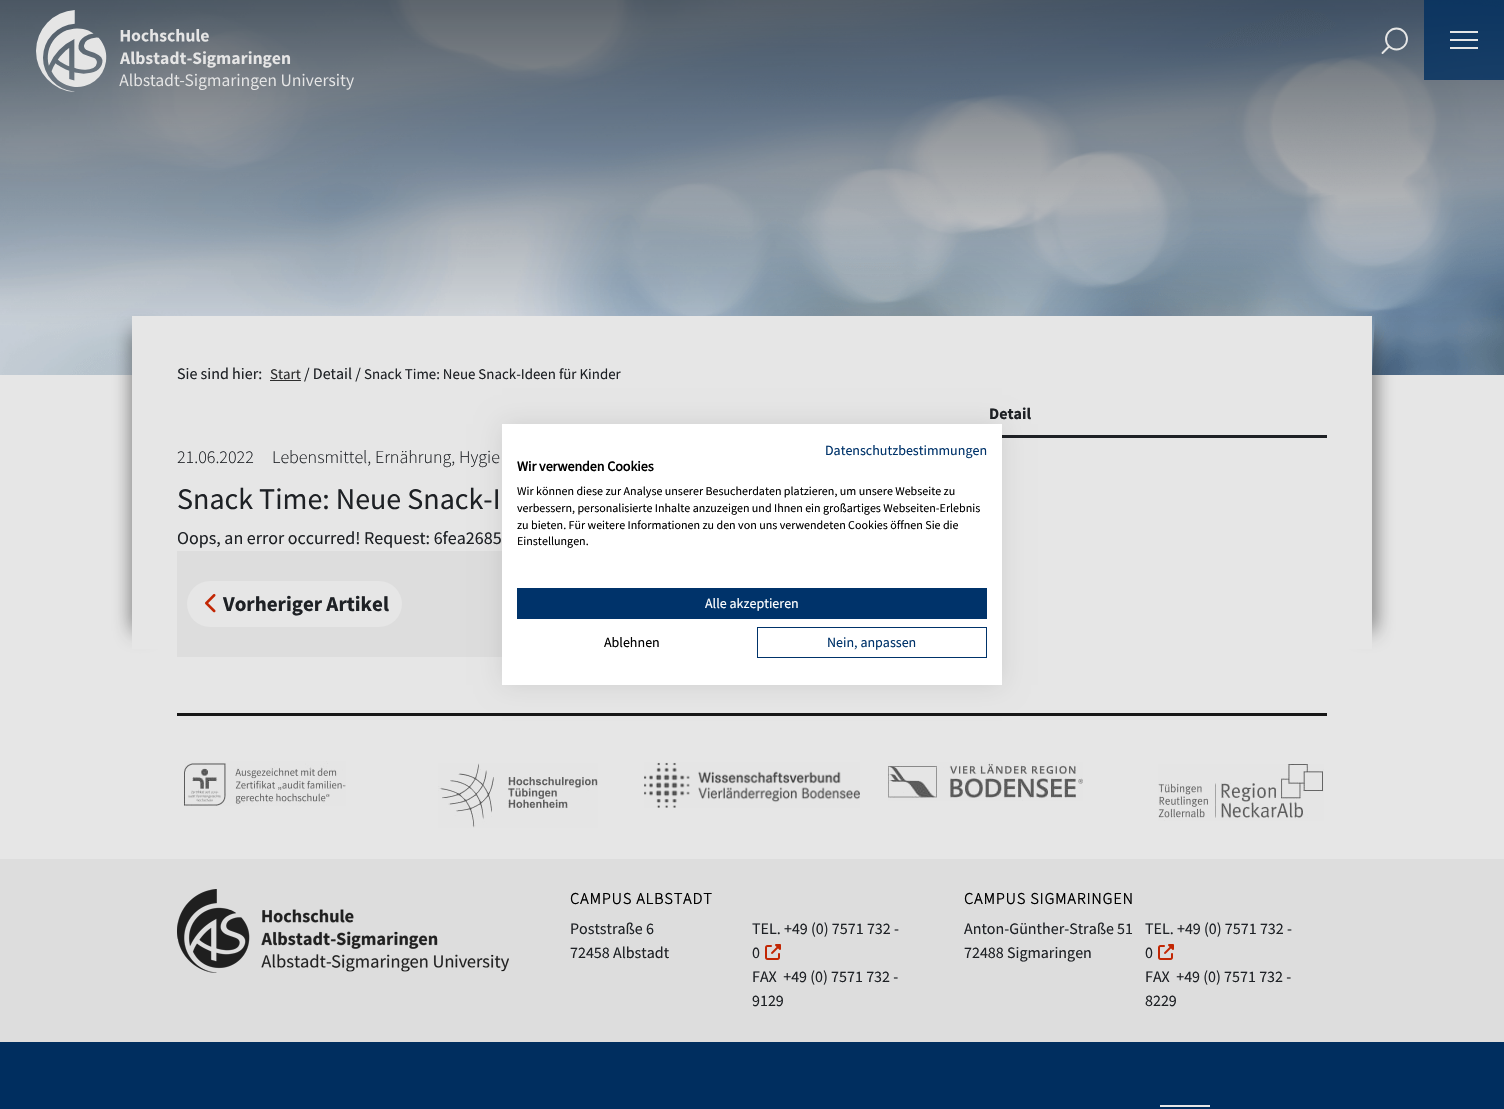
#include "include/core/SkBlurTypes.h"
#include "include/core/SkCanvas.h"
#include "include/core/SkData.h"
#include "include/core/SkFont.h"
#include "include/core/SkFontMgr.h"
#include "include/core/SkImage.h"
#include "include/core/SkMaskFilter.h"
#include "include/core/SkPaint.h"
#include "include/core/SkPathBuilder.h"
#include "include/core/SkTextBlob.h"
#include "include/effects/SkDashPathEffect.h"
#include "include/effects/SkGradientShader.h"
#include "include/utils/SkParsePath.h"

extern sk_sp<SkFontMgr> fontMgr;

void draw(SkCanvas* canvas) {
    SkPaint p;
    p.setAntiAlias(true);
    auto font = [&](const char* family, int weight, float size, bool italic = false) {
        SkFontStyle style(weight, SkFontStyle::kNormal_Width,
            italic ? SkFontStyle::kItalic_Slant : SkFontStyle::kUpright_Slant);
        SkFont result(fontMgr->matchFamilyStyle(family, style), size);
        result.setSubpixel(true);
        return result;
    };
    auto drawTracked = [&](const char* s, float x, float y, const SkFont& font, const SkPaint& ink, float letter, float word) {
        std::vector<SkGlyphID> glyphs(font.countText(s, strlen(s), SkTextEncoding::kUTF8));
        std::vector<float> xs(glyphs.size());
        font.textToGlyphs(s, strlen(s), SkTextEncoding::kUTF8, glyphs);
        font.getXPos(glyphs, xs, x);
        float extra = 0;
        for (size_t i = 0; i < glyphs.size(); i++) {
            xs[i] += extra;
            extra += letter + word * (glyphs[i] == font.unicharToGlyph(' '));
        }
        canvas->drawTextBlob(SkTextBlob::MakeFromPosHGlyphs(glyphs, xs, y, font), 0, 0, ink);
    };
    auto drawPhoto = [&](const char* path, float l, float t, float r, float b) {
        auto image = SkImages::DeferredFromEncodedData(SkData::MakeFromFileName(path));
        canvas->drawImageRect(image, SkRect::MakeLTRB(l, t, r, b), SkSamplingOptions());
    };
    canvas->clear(0xFFE6E6E6);
    drawPhoto("media/2.png", 0, 0, 1504, 375);
    drawPhoto("media/1.png", 36, 10, 354, 92);
    p.setStyle(SkPaint::kStroke_Style);
    p.setStrokeWidth(1.9f);
    p.setColor(0xFFE6E6E6);
    canvas->drawCircle(1396.5f, 39, 10.5f, p);
    p.setStrokeCap(SkPaint::kRound_Cap);
    p.setStrokeJoin(SkPaint::kRound_Join);
    canvas->drawPath(SkPathBuilder().moveTo(1382.5f, 53).lineTo(1389, 46.5f).detach(), p);
    p.setStyle(SkPaint::kFill_Style);
    {
        const struct { float l, t, r, b; SkColor color; } items[] = {
            {1424, 0, 1504, 80, 0xCC002E5F},
            {1450, 31, 1478, 33, 0xFFE6E6E6},
            {1450, 39, 1478, 41, 0xFFE6E6E6},
            {1450, 47, 1478, 49, 0xFFE6E6E6},
        };
        for (auto [l, t, r, b, color] : items) {
            p.setColor(color);
            canvas->drawRect(SkRect::MakeLTRB(l, t, r, b), p);
        }
    }
    p.setColor(0xD9000000);
    p.setMaskFilter(SkMaskFilter::MakeBlur(kNormal_SkBlurStyle, 10));
    canvas->drawRect(SkRect::MakeLTRB(135, 331, 145, 631), p);
    p.setMaskFilter(nullptr);
    canvas->save();
    canvas->clipPath(SkPathBuilder(SkPathFillType::kEvenOdd).moveTo(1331, 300).lineTo(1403, 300).lineTo(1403, 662).lineTo(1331, 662).close().moveTo(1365, 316).lineTo(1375, 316.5f).lineTo(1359, 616.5f).lineTo(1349, 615.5f).close().detach(), true);
    p.setMaskFilter(SkMaskFilter::MakeBlur(kNormal_SkBlurStyle, 10));
    canvas->drawRect(SkRect::MakeLTRB(1362, 331, 1372, 631), p);
    p.setMaskFilter(nullptr);
    canvas->restore();
    p.setColor(0xFFE6E6E6);
    canvas->drawRect(SkRect::MakeLTRB(132, 316, 1372, 649), p);
    auto font1 = font("Source Sans Pro", 400, 16);
    p.setColor(0xFF1E2125);
    canvas->drawString("Sie sind hier:", 177, 379, font1, p);
    auto font2 = font("Source Sans Pro", 400, 14.9f);
    p.setColor(0xFF2E2E2E);
    canvas->drawString("Start", 270, 379, font2, p);
    canvas->drawRect(SkRect::MakeLTRB(270, 380, 301, 381), p);
    p.setColor(0xFF1E2125);
    canvas->drawString("/ Detail /", 304, 379, font1, p);
    canvas->drawString("Snack Time: Neue Snack-Ideen für Kinder", 364, 379, font2, p);
    canvas->drawRect(SkRect::MakeLTRB(1002, 435, 1327, 438), p);
    auto font3 = font("Source Sans Pro", 700, 16);
    canvas->drawString("Detail", 989, 419, font3, p);
    auto font4 = font("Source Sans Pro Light", 300, 18);
    canvas->drawString("21.06.2022", 177, 463, font4, p);
    canvas->drawString("Lebensmittel, Ernährung, Hygie", 272, 463, font4, p);
    auto font5 = font("Source Sans Pro", 400, 30);
    canvas->drawString("Snack Time: Neue Snack-I", 177, 509, font5, p);
    auto font6 = font("Source Sans Pro", 400, 18);
    canvas->drawString("Oops, an error occurred! Request: 6fea2685", 177, 544, font6, p);
    p.setColor(0xFFDDDDDD);
    canvas->drawRect(SkRect::MakeLTRB(177, 551, 502, 657), p);
    p.setColor(0xFFE6E6E6);
    canvas->drawRoundRect(SkRect::MakeLTRB(187, 581, 402, 627), 23, 23, p);
    drawPhoto("media/3.png", 205, 593, 216, 613);
    auto font7 = font("Source Sans Pro", 700, 21);
    p.setColor(0xFF1E2125);
    canvas->drawString("Vorheriger Artikel", 223, 611, font7, p);
    p.setColor(0xFF171717);
    canvas->drawRect(SkRect::MakeLTRB(177, 713, 1327, 716), p);
    drawPhoto("media/4.png", 184, 761, 346, 806);
    drawPhoto("media/5.png", 438, 763, 598, 828);
    drawPhoto("media/6.png", 644, 762, 860, 808);
    drawPhoto("media/7.png", 888, 762, 1083, 801);
    drawPhoto("media/8.png", 1158, 764, 1324, 821);
    p.setColor(0xFFDDDDDD);
    canvas->drawRect(SkRect::MakeLTRB(0, 859, 1504, 1042), p);
    drawPhoto("media/9.png", 177, 889, 509, 973);
    auto font8 = font("Source Sans Pro Light", 700, 16);
    p.setColor(0xFF000000);
    drawTracked("CAMPUS ALBSTADT", 570, 904, font8, p, 1, 0);
    p.setColor(0xFF1E2125);
    {
        const struct { const char* s; float x, y; } items[] = {
            {"Poststraße 6", 570, 934},
            {"72458 Albstadt", 570, 958},
            {"TEL. +49 (0) 7571 732 -", 752, 934},
            {"0", 752, 958},
        };
        for (auto [s, x, y] : items) {
            canvas->drawString(s, x, y, font1, p);
        }
    }
    drawPhoto("media/10.png", 765, 944, 781, 960);
    canvas->drawString("FAX  +49 (0) 7571 732 -", 752, 982, font1, p);
    canvas->drawString("9129", 752, 1006, font1, p);
    p.setColor(0xFF000000);
    drawTracked("CAMPUS SIGMARINGEN", 964, 904, font8, p, 1, 0);
    p.setColor(0xFF1E2125);
    {
        const struct { const char* s; float x, y; } items[] = {
            {"Anton-Günther-Straße 51", 964, 934},
            {"72488 Sigmaringen", 964, 958},
            {"TEL. +49 (0) 7571 732 -", 1145, 934},
            {"0", 1145, 958},
        };
        for (auto [s, x, y] : items) {
            canvas->drawString(s, x, y, font1, p);
        }
    }
    drawPhoto("media/10.png", 1158, 944, 1174, 960);
    canvas->drawString("FAX  +49 (0) 7571 732 -", 1145, 982, font1, p);
    canvas->drawString("8229", 1145, 1006, font1, p);
    p.setColor(0xFF002E5F);
    canvas->drawRect(SkRect::MakeLTRB(0, 1042, 1504, 1109), p);
    p.setColor(0xFFE6E6E6);
    canvas->drawRect(SkRect::MakeLTRB(1160, 1105, 1210, 1107), p);
    p.setColor(0x1A000000);
    p.setMaskFilter(SkMaskFilter::MakeBlur(kNormal_SkBlurStyle, 12));
    canvas->drawRect(SkRect::MakeLTRB(502, 424, 1002, 685), p);
    p.setMaskFilter(nullptr);
    p.setColor(0xFFFFFFFF);
    canvas->drawRect(SkRect::MakeLTRB(502, 424, 1002, 685), p);
    auto font9 = font("Source Sans Pro", 400, 14);
    p.setColor(0xFF00336A);
    canvas->drawString("Datenschutzbestimmungen", 825, 455, font9, p);
    auto font10 = font("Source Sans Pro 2", 700, 14);
    p.setColor(0xFF000000);
    canvas->drawString("Wir verwenden Cookies", 517, 471, font10, p);
    auto font11 = font("Source Sans Pro", 400, 12);
    {
        const struct { const char* s; float x, y; } items[] = {
            {"Wir können diese zur Analyse unserer Besucherdaten platzieren, um unsere Webseite zu", 517, 495},
            {"verbessern, personalisierte Inhalte anzuzeigen und Ihnen ein großartiges Webseiten-Erlebnis", 517, 512},
            {"zu bieten. Für weitere Informationen zu den von uns verwendeten Cookies öffnen Sie die", 517, 529},
            {"Einstellungen.", 517, 545},
        };
        for (auto [s, x, y] : items) {
            canvas->drawString(s, x, y, font11, p);
        }
    }
    p.setColor(0xFF00336A);
    canvas->drawRect(SkRect::MakeLTRB(517, 588, 987, 619), p);
    p.setColor(0xFFFFFFFF);
    canvas->drawString("Alle akzeptieren", 705, 608, font9, p);
    p.setColor(0xFF000000);
    canvas->drawString("Ablehnen", 604, 647, font9, p);
    p.setStyle(SkPaint::kStroke_Style);
    p.setStrokeWidth(1);
    p.setStrokeCap(SkPaint::kButt_Cap);
    p.setStrokeJoin(SkPaint::kMiter_Join);
    p.setColor(0xFF00336A);
    canvas->drawRect(SkRect::MakeLTRB(757.5f, 627.5f, 986.5f, 657.5f), p);
    p.setStyle(SkPaint::kFill_Style);
    canvas->drawString("Nein, anpassen", 827, 647, font9, p);
}
